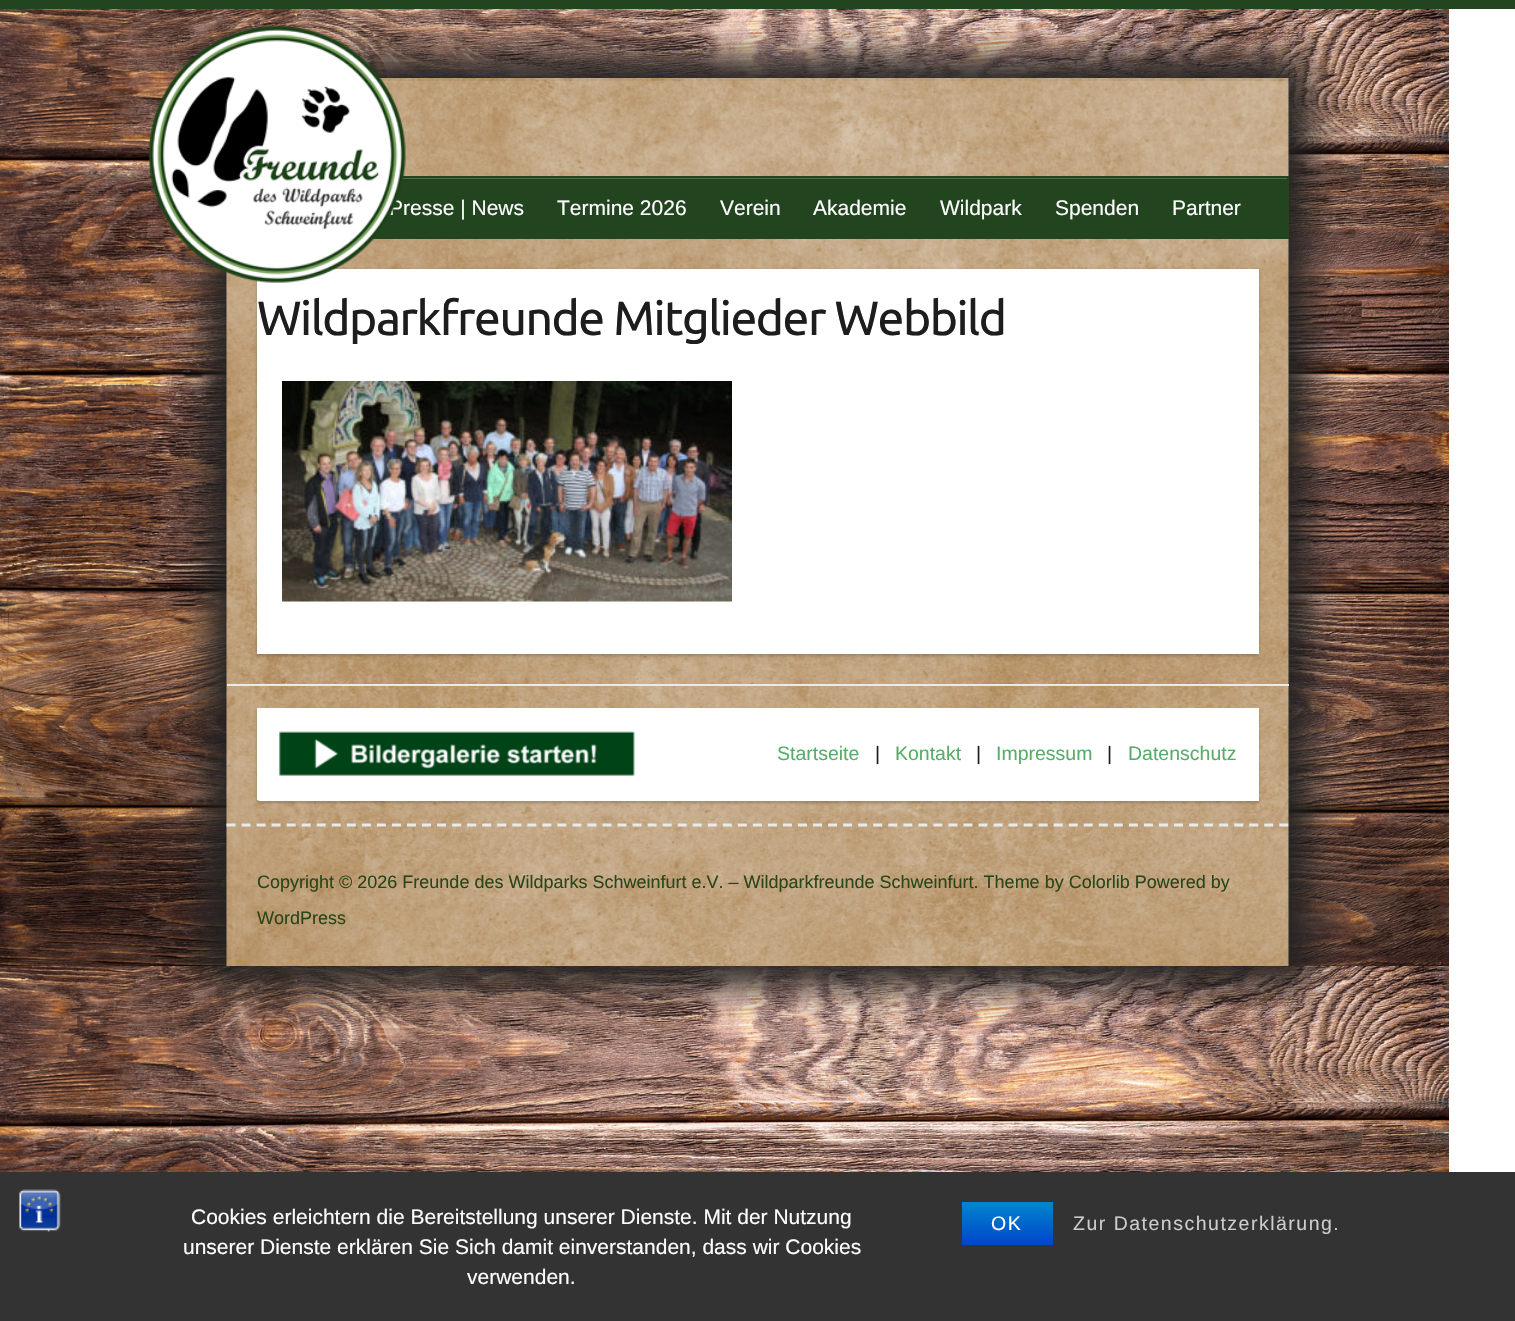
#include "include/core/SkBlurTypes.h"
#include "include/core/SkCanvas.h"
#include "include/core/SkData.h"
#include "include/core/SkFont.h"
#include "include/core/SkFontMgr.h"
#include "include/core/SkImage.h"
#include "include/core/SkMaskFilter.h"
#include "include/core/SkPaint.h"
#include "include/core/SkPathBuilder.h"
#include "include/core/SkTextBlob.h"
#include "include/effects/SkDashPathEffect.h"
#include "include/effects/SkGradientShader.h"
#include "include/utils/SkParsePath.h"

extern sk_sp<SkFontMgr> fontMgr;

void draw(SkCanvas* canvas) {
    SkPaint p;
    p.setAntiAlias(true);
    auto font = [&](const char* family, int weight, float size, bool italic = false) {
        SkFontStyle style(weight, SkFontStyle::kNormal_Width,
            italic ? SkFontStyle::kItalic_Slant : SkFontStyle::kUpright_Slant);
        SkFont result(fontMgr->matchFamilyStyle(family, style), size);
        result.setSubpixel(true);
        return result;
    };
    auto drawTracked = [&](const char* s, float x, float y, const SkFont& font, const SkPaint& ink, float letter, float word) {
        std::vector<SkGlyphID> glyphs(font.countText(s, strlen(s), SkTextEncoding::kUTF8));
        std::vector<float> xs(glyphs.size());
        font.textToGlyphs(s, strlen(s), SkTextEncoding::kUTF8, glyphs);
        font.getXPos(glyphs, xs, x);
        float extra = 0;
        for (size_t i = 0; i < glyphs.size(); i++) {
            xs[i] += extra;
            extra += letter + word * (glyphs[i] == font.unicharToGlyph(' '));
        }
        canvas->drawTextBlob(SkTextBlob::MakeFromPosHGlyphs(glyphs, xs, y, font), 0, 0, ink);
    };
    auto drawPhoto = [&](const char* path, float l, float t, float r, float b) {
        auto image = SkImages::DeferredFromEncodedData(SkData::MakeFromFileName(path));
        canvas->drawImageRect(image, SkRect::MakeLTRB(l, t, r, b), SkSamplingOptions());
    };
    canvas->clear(0xFFFFFFFF);
    drawPhoto("media/1.png", 0, 9, 1449, 1172);
    p.setColor(0xFF224520);
    canvas->drawRect(SkRect::MakeLTRB(0, 0, 1515, 9), p);
    p.setColor(0xFF222222);
    p.setMaskFilter(SkMaskFilter::MakeBlur(kNormal_SkBlurStyle, 18));
    canvas->drawRect(SkRect::MakeLTRB(206, 57, 1310, 987), p);
    p.setMaskFilter(nullptr);
    drawPhoto("media/2.png", 226, 78, 1289, 966);
    p.setColor(0xFF224520);
    canvas->drawRect(SkRect::MakeLTRB(374, 179, 1287, 237), p);
    p.setColor(0xFF4E6A4D);
    canvas->drawRect(SkRect::MakeLTRB(401, 178, 1287, 179), p);
    p.setStyle(SkPaint::kStroke_Style);
    p.setStrokeWidth(2);
    p.setColor(0xFF224520);
    canvas->drawRect(SkRect::MakeLTRB(228, 177, 1288, 238), p);
    auto font1 = font("Liberation Sans", 400, 21);
    p.setStyle(SkPaint::kFill_Style);
    p.setColor(0xFFFFFFFF);
    canvas->drawString("Presse | News", 389, 215, font1, p);
    p.setColor(0x33000000);
    p.setMaskFilter(SkMaskFilter::MakeBlur(kNormal_SkBlurStyle, 1.5f));
    canvas->drawRect(SkRect::MakeLTRB(257, 270, 1259, 656), p);
    p.setMaskFilter(nullptr);
    p.setColor(0xFFFFFFFF);
    canvas->drawRect(SkRect::MakeLTRB(257, 269, 1259, 654), p);
    drawPhoto("media/3.png", 148, 25, 406, 283);
    {
        const struct { const char* s; float x, y; } items[] = {
            {"Termine 2026", 557, 215},
            {"Verein", 720, 215},
            {"Akademie", 813, 215},
            {"Wildpark", 940, 215},
            {"Spenden", 1055, 215},
            {"Partner", 1172, 215},
        };
        for (auto [s, x, y] : items) {
            canvas->drawString(s, x, y, font1, p);
        }
    }
    auto font2 = font("Ubuntu", 400, 48);
    p.setColor(0xFF1D1D1D);
    drawTracked("Wildparkfreunde Mitglieder Webbild", 257, 335, font2, p, -1.5f, 0);
    drawPhoto("media/4.png", 282, 381, 732, 602);
    p.setColor(0xFFEAEAEA);
    canvas->drawRect(SkRect::MakeLTRB(227, 684, 1289, 686), p);
    p.setColor(0x33000000);
    p.setMaskFilter(SkMaskFilter::MakeBlur(kNormal_SkBlurStyle, 1.5f));
    canvas->drawRoundRect(SkRect::MakeLTRB(257, 710, 1259, 803), 3, 3, p);
    p.setMaskFilter(nullptr);
    p.setColor(0xFFFFFFFF);
    canvas->drawRoundRect(SkRect::MakeLTRB(257, 708, 1259, 801), 3, 3, p);
    canvas->drawRect(SkRect::MakeLTRB(257, 708, 260, 800), p);
    drawPhoto("media/5.png", 279, 731, 635, 776);
    canvas->drawRect(SkRect::MakeLTRB(1256, 708, 1259, 801), p);
    auto font3 = font("Liberation Sans", 400, 19.5f);
    p.setColor(0xFF57AD68);
    canvas->drawString("Startseite", 777, 760, font3, p);
    p.setColor(0xFF1D1D1D);
    canvas->drawString("|", 875, 760, font3, p);
    p.setColor(0xFF57AD68);
    canvas->drawString("Kontakt", 895, 760, font3, p);
    p.setColor(0xFF1D1D1D);
    canvas->drawString("|", 976, 760, font3, p);
    p.setColor(0xFF57AD68);
    canvas->drawString("Impressum", 996, 760, font3, p);
    p.setColor(0xFF1D1D1D);
    canvas->drawString("|", 1107, 760, font3, p);
    p.setColor(0xFF57AD68);
    canvas->drawString("Datenschutz", 1128, 760, font3, p);
    p.setStyle(SkPaint::kStroke_Style);
    p.setStrokeWidth(3);
    p.setColor(0xFFEAEAEA);
    p.setPathEffect(SkDashPathEffect::Make({{9, 6.04f}}, 0));
    canvas->drawPath(SkPathBuilder().moveTo(226.5f, 825).lineTo(1288.5f, 825).detach(), p);
    p.setPathEffect(nullptr);
    auto font4 = font("Liberation Sans", 400, 18);
    p.setStyle(SkPaint::kFill_Style);
    p.setColor(0xFF284619);
    canvas->drawString("Copyright © 2026 Freunde des Wildparks Schweinfurt e.V. – Wildparkfreunde Schweinfurt. Theme by Colorlib Powered by", 257, 888, font4, p);
    canvas->drawString("WordPress", 257, 924, font4, p);
    p.setColor(0xFF333333);
    canvas->drawRect(SkRect::MakeLTRB(0, 1172, 1515, 1321), p);
    drawPhoto("media/6.png", 19, 1189, 61, 1232);
    p.setColor(0xFFFFFFFF);
    {
        const struct { const char* s; float x, y; } items[] = {
            {"Cookies erleichtern die Bereitstellung unserer Dienste. Mit der Nutzung", 191, 1224},
            {"unserer Dienste erklären Sie Sich damit einverstanden, dass wir Cookies", 183, 1254},
            {"verwenden.", 467, 1284},
        };
        for (auto [s, x, y] : items) {
            canvas->drawString(s, x, y, font1, p);
        }
    }
    {
        const SkColor colors[] = {0xFF0088CC, 0xFF0044CC};
        const float stops[] = {0, 1};
        const SkPoint ends[] = {{1007, 1202}, {1007, 1245}};
        p.setShader(SkGradientShader::MakeLinear(ends, colors, stops, 2, SkTileMode::kClamp));
        p.setAlpha(255);
    }
    canvas->drawRect(SkRect::MakeLTRB(962, 1202, 1053, 1245), p);
    p.setShader(nullptr);
    p.setColor(0xFFFFFFFF);
    drawTracked("OK", 991, 1230, font3, p, 1.5f, 0);
    p.setColor(0xFFCCCCCC);
    drawTracked("Zur Datenschutzerklärung.", 1073, 1230, font3, p, 1.5f, 0);
}
